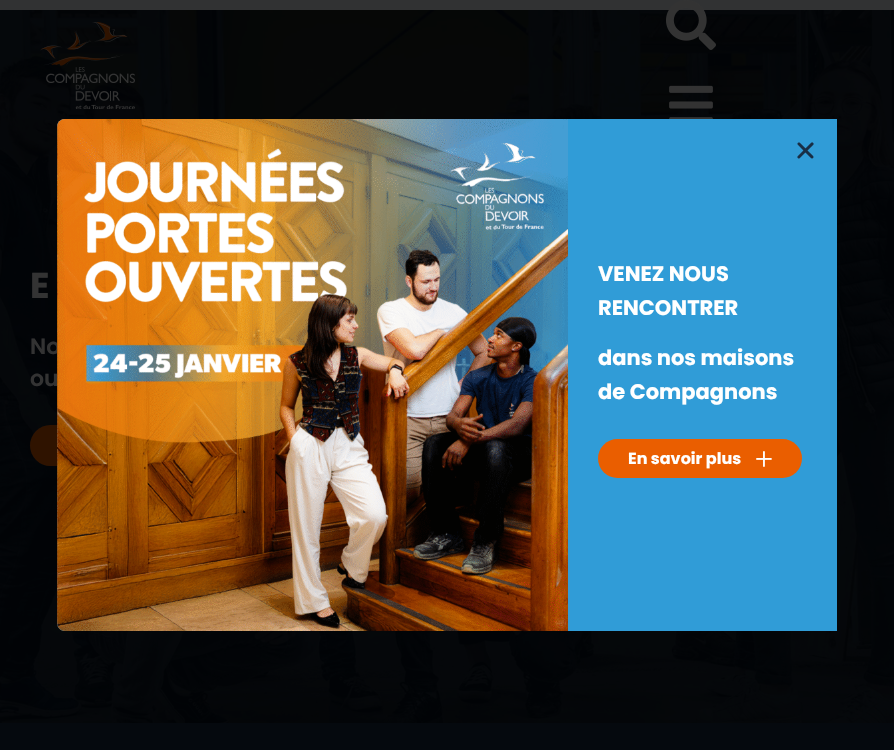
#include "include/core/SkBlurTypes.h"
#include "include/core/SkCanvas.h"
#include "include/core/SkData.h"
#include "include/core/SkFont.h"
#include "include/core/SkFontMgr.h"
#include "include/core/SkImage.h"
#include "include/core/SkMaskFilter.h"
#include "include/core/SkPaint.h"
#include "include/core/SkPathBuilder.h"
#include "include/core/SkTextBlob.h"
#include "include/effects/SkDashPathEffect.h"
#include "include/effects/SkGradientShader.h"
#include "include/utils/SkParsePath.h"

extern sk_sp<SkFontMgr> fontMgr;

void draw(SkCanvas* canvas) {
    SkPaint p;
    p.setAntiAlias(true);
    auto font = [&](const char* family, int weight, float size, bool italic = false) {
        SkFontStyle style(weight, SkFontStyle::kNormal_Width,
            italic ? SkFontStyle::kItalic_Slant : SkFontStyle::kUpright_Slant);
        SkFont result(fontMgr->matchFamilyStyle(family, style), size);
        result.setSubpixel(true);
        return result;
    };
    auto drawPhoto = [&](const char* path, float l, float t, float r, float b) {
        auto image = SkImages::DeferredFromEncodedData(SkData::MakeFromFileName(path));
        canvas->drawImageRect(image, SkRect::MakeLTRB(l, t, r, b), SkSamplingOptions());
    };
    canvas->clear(0xFF313233);
    drawPhoto("media/4.png", 0, 10, 894, 723);
    drawPhoto("media/1.png", 40, 22, 135, 109);
    drawPhoto("media/2.png", 666, 0, 716, 50);
    drawPhoto("media/3.png", 669, 85, 713, 119);
    auto font1 = font("Poppins", 700, 36);
    p.setColor(0xFF333333);
    canvas->drawString("E", 30, 298, font1, p);
    auto font2 = font("Poppins", 600, 22);
    canvas->drawString("No", 30, 354, font2, p);
    canvas->drawString("ou", 30, 386, font2, p);
    p.setColor(0xFF2F1300);
    canvas->drawRoundRect(SkRect::MakeLTRB(30, 425, 258, 466), 20.5f, 20.5f, p);
    p.setColor(0xFF71BDF8);
    canvas->drawRoundRect(SkRect::MakeLTRB(57, 119, 837, 631), 8, 8, p);
    p.setColor(0xFF309CD7);
    canvas->drawRect(SkRect::MakeLTRB(568, 119, 837, 631), p);
    drawPhoto("media/5.png", 797, 142, 814, 159);
    drawPhoto("media/6.png", 57, 119, 568, 631);
    auto font3 = font("Poppins", 700, 21);
    p.setColor(0xFFFFFFFF);
    {
        const struct { const char* s; float x, y; } items[] = {
            {"VENEZ NOUS", 598, 281},
            {"RENCONTRER", 598, 315},
            {"dans nos maisons", 598, 365},
            {"de Compagnons", 598, 399},
        };
        for (auto [s, x, y] : items) {
            canvas->drawString(s, x, y, font3, p);
        }
    }
    p.setColor(0xFFEA5E00);
    canvas->drawRoundRect(SkRect::MakeLTRB(598, 439, 802, 478), 19.5f, 19.5f, p);
    auto font4 = font("Poppins", 700, 16);
    p.setColor(0xFFFFFFFF);
    canvas->drawString("En savoir plus", 628, 464, font4, p);
    drawPhoto("media/7.png", 756, 451, 772, 467);
    p.setColor(0xFF05090E);
    canvas->drawRect(SkRect::MakeLTRB(0, 723, 894, 750), p);
}
